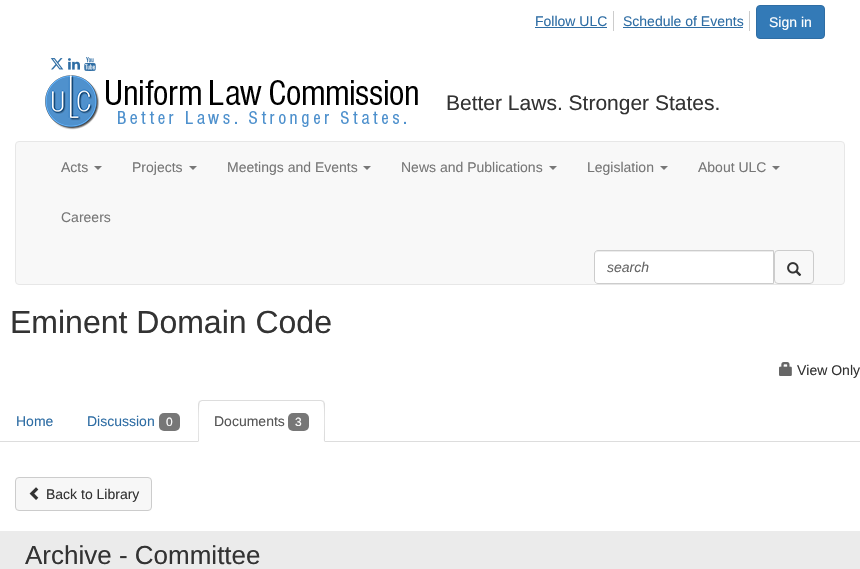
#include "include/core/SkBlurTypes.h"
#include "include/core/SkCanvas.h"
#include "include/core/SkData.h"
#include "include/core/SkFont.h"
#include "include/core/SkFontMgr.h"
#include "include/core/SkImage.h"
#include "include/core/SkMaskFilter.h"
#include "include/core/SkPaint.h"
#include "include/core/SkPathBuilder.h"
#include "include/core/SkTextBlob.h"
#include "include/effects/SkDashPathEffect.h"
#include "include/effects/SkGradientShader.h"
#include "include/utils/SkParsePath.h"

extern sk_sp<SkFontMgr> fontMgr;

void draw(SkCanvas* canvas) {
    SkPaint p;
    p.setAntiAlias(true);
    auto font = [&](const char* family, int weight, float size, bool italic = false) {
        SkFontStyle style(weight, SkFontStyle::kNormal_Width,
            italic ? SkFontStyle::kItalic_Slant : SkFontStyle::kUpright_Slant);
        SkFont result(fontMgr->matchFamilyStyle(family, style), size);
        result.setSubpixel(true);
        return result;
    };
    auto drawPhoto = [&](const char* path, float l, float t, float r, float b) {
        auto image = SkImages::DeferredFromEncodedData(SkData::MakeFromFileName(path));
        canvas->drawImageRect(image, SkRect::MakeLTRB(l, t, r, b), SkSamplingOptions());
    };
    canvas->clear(0xFFFFFFFF);
    p.setColor(0xFFCCCCCC);
    canvas->drawRect(SkRect::MakeLTRB(613, 11, 614, 31), p);
    auto font1 = font("Liberation Sans", 400, 14);
    p.setColor(0xFF2E6DA4);
    canvas->drawString("Follow ULC", 535, 26, font1, p);
    canvas->drawRect(SkRect::MakeLTRB(535, 27, 607, 28), p);
    p.setColor(0xFFCCCCCC);
    canvas->drawRect(SkRect::MakeLTRB(749, 11, 750, 31), p);
    p.setColor(0xFF2E6DA4);
    canvas->drawString("Schedule of Events", 623, 26, font1, p);
    canvas->drawRect(SkRect::MakeLTRB(623, 27, 743, 28), p);
    p.setColor(0xFF337AB7);
    canvas->drawRoundRect(SkRect::MakeLTRB(756.5f, 5.5f, 824.5f, 38.5f), 3.5f, 3.5f, p);
    p.setStyle(SkPaint::kStroke_Style);
    p.setStrokeWidth(1);
    p.setColor(0xFF2E6DA4);
    canvas->drawRoundRect(SkRect::MakeLTRB(756.5f, 5.5f, 824.5f, 38.5f), 3.5f, 3.5f, p);
    p.setStyle(SkPaint::kFill_Style);
    p.setColor(0xFFFFFFFF);
    canvas->drawString("Sign in", 769, 27, font1, p);
    drawPhoto("media/1.png", 50, 58, 64, 70);
    drawPhoto("media/2.png", 68, 58, 80, 70);
    drawPhoto("media/3.png", 84, 57, 96, 71);
    drawPhoto("media/4.png", 45, 75, 418, 130);
    auto font2 = font("Liberation Sans", 400, 21);
    p.setColor(0xFF333333);
    canvas->drawString("Better Laws. Stronger States.", 446, 110, font2, p);
    p.setColor(0xFFF8F8F8);
    canvas->drawRoundRect(SkRect::MakeLTRB(15.5f, 141.5f, 844.5f, 284.5f), 3.5f, 3.5f, p);
    p.setStyle(SkPaint::kStroke_Style);
    p.setColor(0xFFE7E7E7);
    canvas->drawRoundRect(SkRect::MakeLTRB(15.5f, 141.5f, 844.5f, 284.5f), 3.5f, 3.5f, p);
    p.setStyle(SkPaint::kFill_Style);
    p.setColor(0xFF777777);
    canvas->drawString("Acts", 61, 172, font1, p);
    canvas->drawPath(SkPathBuilder().moveTo(94, 166).lineTo(102, 166).lineTo(98, 170).close().detach(), p);
    canvas->drawString("Projects", 132, 172, font1, p);
    canvas->drawPath(SkPathBuilder().moveTo(189, 166).lineTo(197, 166).lineTo(193, 170).close().detach(), p);
    canvas->drawString("Meetings and Events", 227, 172, font1, p);
    canvas->drawPath(SkPathBuilder().moveTo(363, 166).lineTo(371, 166).lineTo(367, 170).close().detach(), p);
    canvas->drawString("News and Publications", 401, 172, font1, p);
    canvas->drawPath(SkPathBuilder().moveTo(549, 166).lineTo(557, 166).lineTo(553, 170).close().detach(), p);
    canvas->drawString("Legislation", 587, 172, font1, p);
    canvas->drawPath(SkPathBuilder().moveTo(660, 166).lineTo(668, 166).lineTo(664, 170).close().detach(), p);
    canvas->drawString("About ULC", 698, 172, font1, p);
    canvas->drawPath(SkPathBuilder().moveTo(772, 166).lineTo(780, 166).lineTo(776, 170).close().detach(), p);
    canvas->drawString("Careers", 61, 222, font1, p);
    p.setColor(0xFFFFFFFF);
    canvas->drawPath(SkPathBuilder().moveTo(598, 250).lineTo(774, 250).lineTo(774, 284).lineTo(598, 284).cubicTo(596, 284, 594, 282, 594, 280).lineTo(594, 254).cubicTo(594, 252, 596, 250, 598, 250).close().detach(), p);
    p.setColor(0xFFECECEC);
    canvas->drawPath(SkPathBuilder().moveTo(598, 252).lineTo(773, 252).lineTo(773, 251).lineTo(597, 251).cubicTo(595, 252, 595, 253, 595, 255).cubicTo(595, 253, 596, 252, 598, 252).close().detach(), p);
    p.setStyle(SkPaint::kStroke_Style);
    p.setColor(0xFFCCCCCC);
    canvas->drawPath(SkPathBuilder().moveTo(598, 250.5f).lineTo(773.5f, 250.5f).lineTo(773.5f, 283.5f).lineTo(598, 283.5f).cubicTo(596, 283.5f, 594.5f, 282, 594.5f, 280).lineTo(594.5f, 254).cubicTo(594.5f, 252, 596, 250.5f, 598, 250.5f).close().detach(), p);
    auto font3 = font("Liberation Sans", 400, 14, true);
    p.setStyle(SkPaint::kFill_Style);
    p.setColor(0xFF666666);
    canvas->drawString("search", 607, 272, font3, p);
    p.setStyle(SkPaint::kStroke_Style);
    p.setColor(0xFFCCCCCC);
    canvas->drawRoundRect(SkRect::MakeLTRB(774.5f, 250.5f, 813.5f, 283.5f), 3.5f, 3.5f, p);
    drawPhoto("media/5.png", 787, 262, 802, 276);
    auto font4 = font("Liberation Sans", 400, 32);
    p.setStyle(SkPaint::kFill_Style);
    p.setColor(0xFF333333);
    canvas->drawString("Eminent Domain Code", 10, 333, font4, p);
    drawPhoto("media/6.png", 779, 362, 792, 376);
    canvas->drawString("View Only", 797, 375, font1, p);
    p.setColor(0xFFDDDDDD);
    canvas->drawRect(SkRect::MakeLTRB(0, 441, 860, 442), p);
    p.setColor(0xFF2E6DA4);
    canvas->drawString("Home", 16, 426, font1, p);
    canvas->drawString("Discussion", 87, 426, font1, p);
    p.setColor(0xFF777777);
    canvas->drawRoundRect(SkRect::MakeLTRB(159, 413, 180, 431), 5, 5, p);
    auto font5 = font("Liberation Sans", 400, 12);
    p.setColor(0xFFFFFFFF);
    canvas->drawString("0", 166, 426, font5, p);
    canvas->drawPath(SkPathBuilder().moveTo(202, 400).lineTo(321, 400).cubicTo(323, 400, 325, 402, 325, 404).lineTo(325, 442).lineTo(198, 442).lineTo(198, 404).cubicTo(198, 402, 200, 400, 202, 400).close().detach(), p);
    p.setColor(0xFFDDDDDD);
    canvas->drawPath(SkPathBuilder().moveTo(202, 400).lineTo(199, 401).lineTo(200, 402).lineTo(202, 401).lineTo(321, 401).lineTo(323, 402).lineTo(324, 401).lineTo(321, 400).close().detach(), p);
    canvas->drawPath(SkPathBuilder().moveTo(325, 442).lineTo(325, 404).cubicTo(325, 403, 324, 402, 324, 401).lineTo(323, 402).cubicTo(325, 404, 324, 436, 324, 441).close().detach(), p);
    canvas->drawPath(SkPathBuilder().moveTo(198, 442).lineTo(199, 441).cubicTo(199, 436, 198, 404, 200, 402).lineTo(199, 401).lineTo(198, 404).close().detach(), p);
    p.setColor(0xFF555555);
    canvas->drawString("Documents", 214, 426, font1, p);
    p.setColor(0xFF777777);
    canvas->drawRoundRect(SkRect::MakeLTRB(288, 413, 309, 431), 5, 5, p);
    p.setColor(0xFFFFFFFF);
    canvas->drawString("3", 295, 426, font5, p);
    p.setColor(0xFFF7F7F7);
    canvas->drawRoundRect(SkRect::MakeLTRB(15.5f, 477.5f, 151.5f, 510.5f), 3.5f, 3.5f, p);
    p.setStyle(SkPaint::kStroke_Style);
    p.setColor(0xFFCCCCCC);
    canvas->drawRoundRect(SkRect::MakeLTRB(15.5f, 477.5f, 151.5f, 510.5f), 3.5f, 3.5f, p);
    drawPhoto("media/7.png", 29, 487, 39, 500);
    p.setStyle(SkPaint::kFill_Style);
    p.setColor(0xFF333333);
    canvas->drawString("Back to Library", 46, 499, font1, p);
    p.setColor(0xFFEBEBEB);
    canvas->drawRect(SkRect::MakeLTRB(0, 531, 860, 569), p);
    auto font6 = font("Liberation Sans", 400, 26);
    p.setColor(0xFF333333);
    canvas->drawString("Archive - Committee", 25, 564, font6, p);
}
